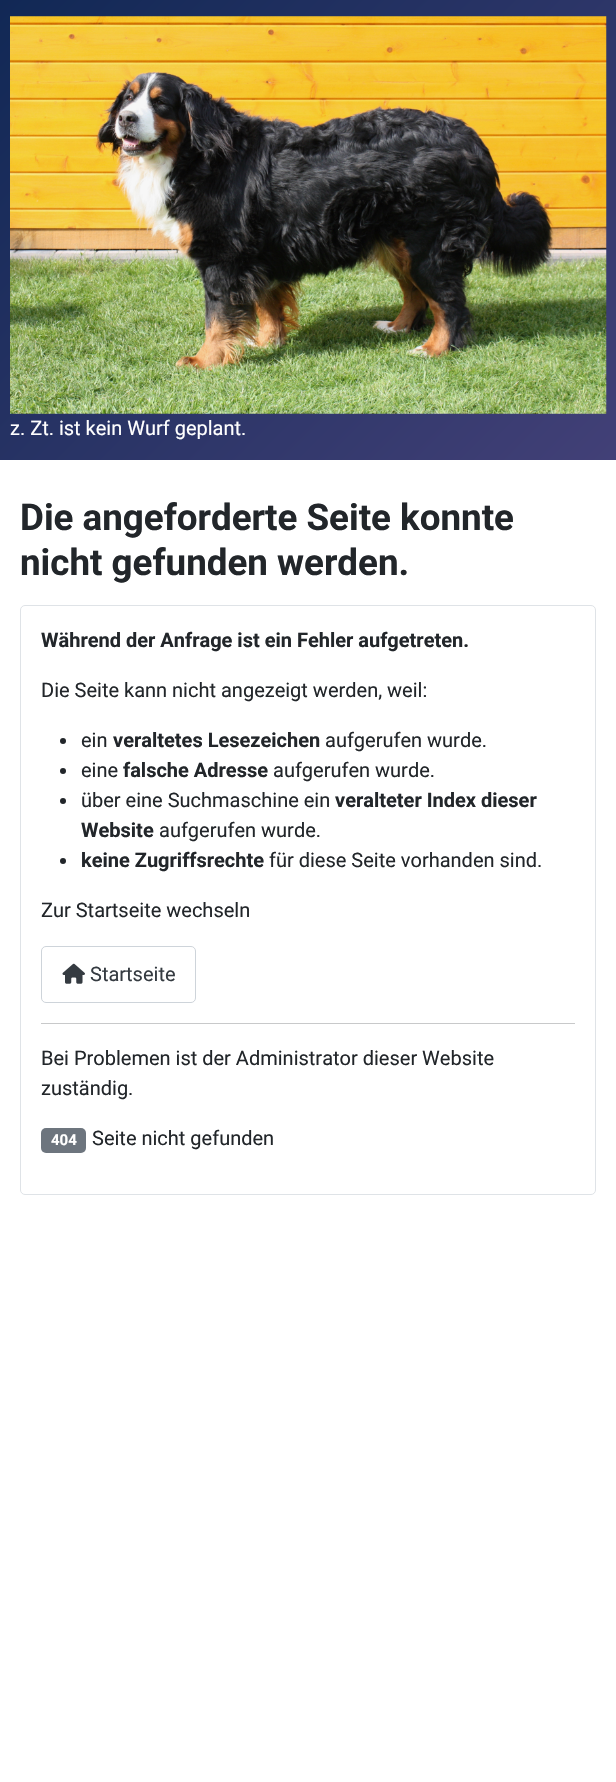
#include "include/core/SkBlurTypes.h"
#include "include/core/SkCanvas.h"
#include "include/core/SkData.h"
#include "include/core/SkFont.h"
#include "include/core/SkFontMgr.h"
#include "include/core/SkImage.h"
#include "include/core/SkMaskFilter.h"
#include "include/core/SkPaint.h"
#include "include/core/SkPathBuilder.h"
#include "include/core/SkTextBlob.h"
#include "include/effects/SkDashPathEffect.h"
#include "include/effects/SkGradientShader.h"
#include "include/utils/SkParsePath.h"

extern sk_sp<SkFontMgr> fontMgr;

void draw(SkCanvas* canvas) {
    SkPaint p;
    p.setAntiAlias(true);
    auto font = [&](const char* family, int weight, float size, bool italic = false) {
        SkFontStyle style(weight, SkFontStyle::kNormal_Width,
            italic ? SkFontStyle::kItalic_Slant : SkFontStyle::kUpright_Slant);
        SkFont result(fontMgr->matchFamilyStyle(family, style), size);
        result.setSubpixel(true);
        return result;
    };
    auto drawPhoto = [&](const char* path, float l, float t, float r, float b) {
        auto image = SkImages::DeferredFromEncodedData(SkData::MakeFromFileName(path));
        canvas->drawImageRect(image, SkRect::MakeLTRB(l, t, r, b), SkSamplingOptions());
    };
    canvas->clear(0xFFFFFFFF);
    {
        const SkColor colors[] = {0xFF112855, 0xFF424077};
        const float stops[] = {0, 1};
        const SkPoint ends[] = {{39, -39}, {577, 499}};
        p.setShader(SkGradientShader::MakeLinear(ends, colors, stops, 2, SkTileMode::kClamp));
        p.setAlpha(255);
    }
    canvas->drawRect(SkRect::MakeLTRB(0, 0, 616, 460), p);
    drawPhoto("media/1.png", 10, 16, 607, 414);
    auto font1 = font("Roboto", 400, 20);
    p.setShader(nullptr);
    p.setColor(0xFFFFFFFF);
    canvas->drawString("z. Zt. ist kein Wurf geplant.", 10, 435, font1, p);
    auto font2 = font("Roboto", 700, 36.75f);
    p.setColor(0xFF22262A);
    canvas->drawString("Die angeforderte Seite konnte", 20, 530, font2, p);
    canvas->drawString("nicht gefunden werden.", 20, 575, font2, p);
    p.setStyle(SkPaint::kStroke_Style);
    p.setStrokeWidth(1);
    p.setColor(0xFFDFE3E7);
    canvas->drawRoundRect(SkRect::MakeLTRB(20.5f, 605.5f, 595.5f, 1194.5f), 4.5f, 4.5f, p);
    auto font3 = font("Roboto", 700, 20);
    p.setStyle(SkPaint::kFill_Style);
    p.setColor(0xFF22262A);
    canvas->drawString("Während der Anfrage ist ein Fehler aufgetreten.", 41, 647, font3, p);
    canvas->drawString("Die Seite kann nicht angezeigt werden, weil:", 41, 697, font1, p);
    canvas->drawCircle(63, 741, 3, p);
    canvas->drawString("ein", 81, 747, font1, p);
    canvas->drawString("veraltetes Lesezeichen", 113, 747, font3, p);
    canvas->drawString("aufgerufen wurde.", 325, 747, font1, p);
    canvas->drawCircle(63, 771, 3, p);
    canvas->drawString("eine", 81, 777, font1, p);
    canvas->drawString("falsche Adresse", 123, 777, font3, p);
    canvas->drawString("aufgerufen wurde.", 273, 777, font1, p);
    canvas->drawCircle(63, 801, 3, p);
    canvas->drawString("über eine Suchmaschine ein", 81, 807, font1, p);
    canvas->drawString("veralteter Index dieser", 335, 807, font3, p);
    canvas->drawString("Website", 81, 837, font3, p);
    canvas->drawString("aufgerufen wurde.", 159, 837, font1, p);
    canvas->drawCircle(63, 861, 3, p);
    canvas->drawString("keine Zugriffsrechte", 81, 867, font3, p);
    canvas->drawString("für diese Seite vorhanden sind.", 269, 867, font1, p);
    canvas->drawString("Zur Startseite wechseln", 41, 917, font1, p);
    p.setStyle(SkPaint::kStroke_Style);
    p.setColor(0xFFCED4DA);
    canvas->drawRoundRect(SkRect::MakeLTRB(41.5f, 946.5f, 195.5f, 1002.5f), 4.5f, 4.5f, p);
    drawPhoto("media/2.png", 62, 963, 85, 984);
    p.setStyle(SkPaint::kFill_Style);
    p.setColor(0xFF353B41);
    canvas->drawString("Startseite", 90, 981, font1, p);
    p.setColor(0xFFC8C9CA);
    canvas->drawRect(SkRect::MakeLTRB(41, 1023, 575, 1024), p);
    p.setColor(0xFF22262A);
    canvas->drawString("Bei Problemen ist der Administrator dieser Website", 41, 1065, font1, p);
    canvas->drawString("zuständig.", 41, 1095, font1, p);
    p.setColor(0xFF6D757E);
    canvas->drawRoundRect(SkRect::MakeLTRB(41, 1128, 86, 1153), 5, 5, p);
    auto font4 = font("Roboto", 700, 15);
    p.setColor(0xFFFFFFFF);
    canvas->drawString("404", 51, 1145, font4, p);
    p.setColor(0xFF22262A);
    canvas->drawString("Seite nicht gefunden", 92, 1145, font1, p);
}
